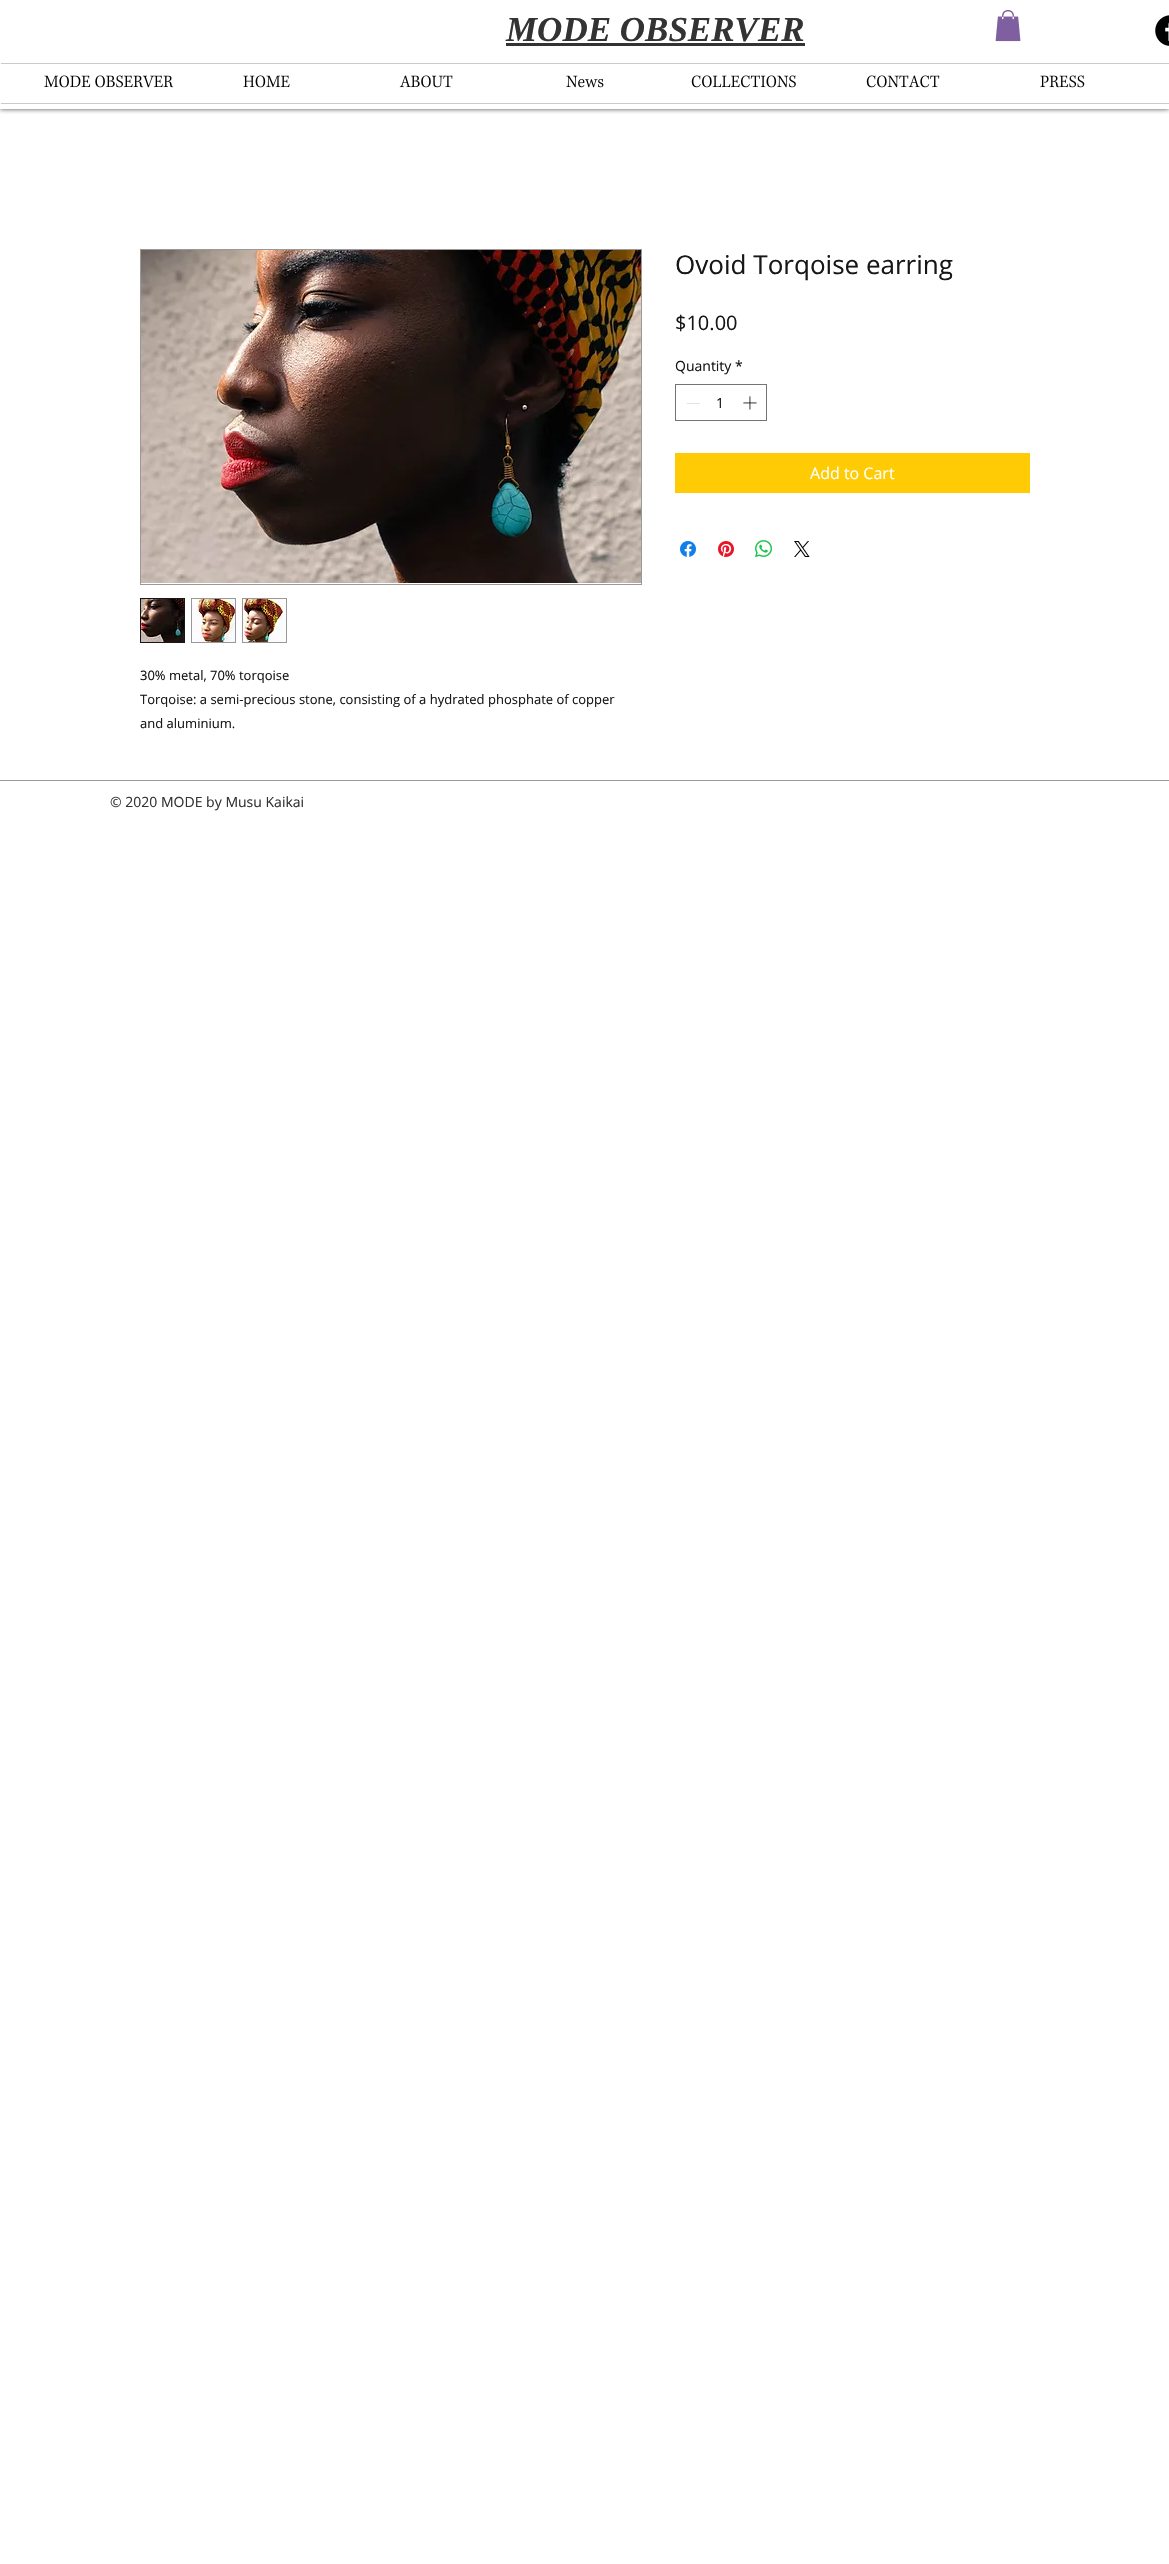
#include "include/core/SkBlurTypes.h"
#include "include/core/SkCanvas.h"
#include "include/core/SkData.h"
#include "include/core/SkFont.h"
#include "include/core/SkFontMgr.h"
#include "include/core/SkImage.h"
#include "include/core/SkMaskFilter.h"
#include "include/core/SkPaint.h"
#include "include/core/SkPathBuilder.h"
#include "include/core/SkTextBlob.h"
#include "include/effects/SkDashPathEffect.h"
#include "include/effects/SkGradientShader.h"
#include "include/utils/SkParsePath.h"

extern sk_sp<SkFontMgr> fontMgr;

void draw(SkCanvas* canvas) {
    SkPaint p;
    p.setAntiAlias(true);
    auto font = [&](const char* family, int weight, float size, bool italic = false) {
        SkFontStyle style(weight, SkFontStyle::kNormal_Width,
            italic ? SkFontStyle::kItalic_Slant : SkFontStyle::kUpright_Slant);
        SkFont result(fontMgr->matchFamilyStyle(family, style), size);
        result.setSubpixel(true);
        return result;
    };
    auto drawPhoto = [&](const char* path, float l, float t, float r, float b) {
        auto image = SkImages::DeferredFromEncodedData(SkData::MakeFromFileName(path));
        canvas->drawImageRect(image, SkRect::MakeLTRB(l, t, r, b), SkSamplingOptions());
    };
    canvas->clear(0xFFFFFFFF);
    canvas->save();
    canvas->clipRect(SkRect::MakeLTRB(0, 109, 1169, 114));
    p.setColor(0xB3000000);
    p.setMaskFilter(SkMaskFilter::MakeBlur(kNormal_SkBlurStyle, 2.5f));
    canvas->drawRect(SkRect::MakeLTRB(0, 0, 1169, 109), p);
    p.setMaskFilter(nullptr);
    canvas->restore();
    auto font1 = font("Liberation Serif", 700, 35, true);
    p.setColor(0xFF333333);
    canvas->drawString("MODE OBSERVER", 506, 41, font1, p);
    canvas->drawRect(SkRect::MakeLTRB(506, 43, 805, 46), p);
    drawPhoto("media/1.png", 995, 10, 1021, 42);
    drawPhoto("media/2.png", 1155, 15, 1169, 46);
    p.setColor(0xFFCACACA);
    canvas->drawRect(SkRect::MakeLTRB(1, 63, 1169, 64), p);
    canvas->drawRect(SkRect::MakeLTRB(1, 103, 1169, 104), p);
    drawPhoto("media/3.png", 44, 75, 174, 88);
    drawPhoto("media/4.png", 243, 75, 290, 88);
    drawPhoto("media/5.png", 399, 75, 453, 88);
    drawPhoto("media/6.png", 566, 75, 604, 88);
    drawPhoto("media/7.png", 691, 75, 796, 88);
    drawPhoto("media/8.png", 866, 75, 940, 88);
    drawPhoto("media/9.png", 1040, 75, 1085, 88);
    auto font2 = font("Open Sans", 400, 26);
    p.setColor(0xFF181717);
    canvas->drawString("Ovoid Torqoise earring", 675, 274, font2, p);
    auto font3 = font("Open Sans", 400, 20);
    canvas->drawString("$10.00", 675, 330, font3, p);
    auto font4 = font("Open Sans", 400, 14);
    canvas->drawString("Quantity", 675, 371, font4, p);
    canvas->drawString("*", 735, 371, font4, p);
    p.setStyle(SkPaint::kStroke_Style);
    p.setStrokeWidth(1);
    p.setColor(0xFF747474);
    canvas->drawRect(SkRect::MakeLTRB(675.5f, 384.5f, 766.5f, 420.5f), p);
    p.setStyle(SkPaint::kFill_Style);
    p.setColor(0xFFE3E3E3);
    canvas->drawRect(SkRect::MakeLTRB(687, 403, 700, 404), p);
    p.setColor(0xFF181717);
    canvas->drawString("1", 716, 408, font4, p);
    drawPhoto("media/10.png", 743, 396, 757, 410);
    p.setColor(0xFFFFCB05);
    canvas->drawRect(SkRect::MakeLTRB(675, 453, 1030, 493), p);
    auto font5 = font("Open Sans", 400, 16);
    p.setColor(0xFFFFFFFF);
    canvas->drawString("Add to Cart", 810, 479, font5, p);
    drawPhoto("media/11.png", 680, 541, 696, 557);
    drawPhoto("media/12.png", 718, 541, 734, 557);
    drawPhoto("media/13.png", 755, 540, 772, 557);
    drawPhoto("media/14.png", 794, 541, 810, 557);
    p.setStyle(SkPaint::kStroke_Style);
    p.setColor(0xFF999999);
    canvas->drawRect(SkRect::MakeLTRB(140.5f, 249.5f, 641.5f, 584.5f), p);
    drawPhoto("media/15.png", 141, 250, 641, 583);
    p.setColor(0xFF181717);
    canvas->drawRect(SkRect::MakeLTRB(140.5f, 598.5f, 184.5f, 642.5f), p);
    drawPhoto("media/16.png", 141, 599, 184, 642);
    p.setStyle(SkPaint::kFill_Style);
    p.setColor(0xFF999999);
    canvas->drawRect(SkRect::MakeLTRB(191, 598, 236, 643), p);
    drawPhoto("media/17.png", 192, 599, 235, 642);
    canvas->drawRect(SkRect::MakeLTRB(242, 598, 287, 643), p);
    drawPhoto("media/18.png", 243, 599, 286, 642);
    auto font6 = font("Open Sans", 400, 13);
    p.setColor(0xFF181717);
    {
        const struct { const char* s; float x, y; } items[] = {
            {"30% metal, 70% torqoise", 140, 680},
            {"Torqoise: a semi-precious stone, consisting of a hydrated phosphate of copper", 140, 704},
            {"and aluminium.", 140, 728},
        };
        for (auto [s, x, y] : items) {
            canvas->drawString(s, x, y, font6, p);
        }
    }
    p.setColor(0xFF999999);
    canvas->drawRect(SkRect::MakeLTRB(0, 780, 1169, 781), p);
    p.setColor(0xFF333333);
    canvas->drawString("© 2020 MODE by Musu Kaikai", 110, 807, font4, p);
}
